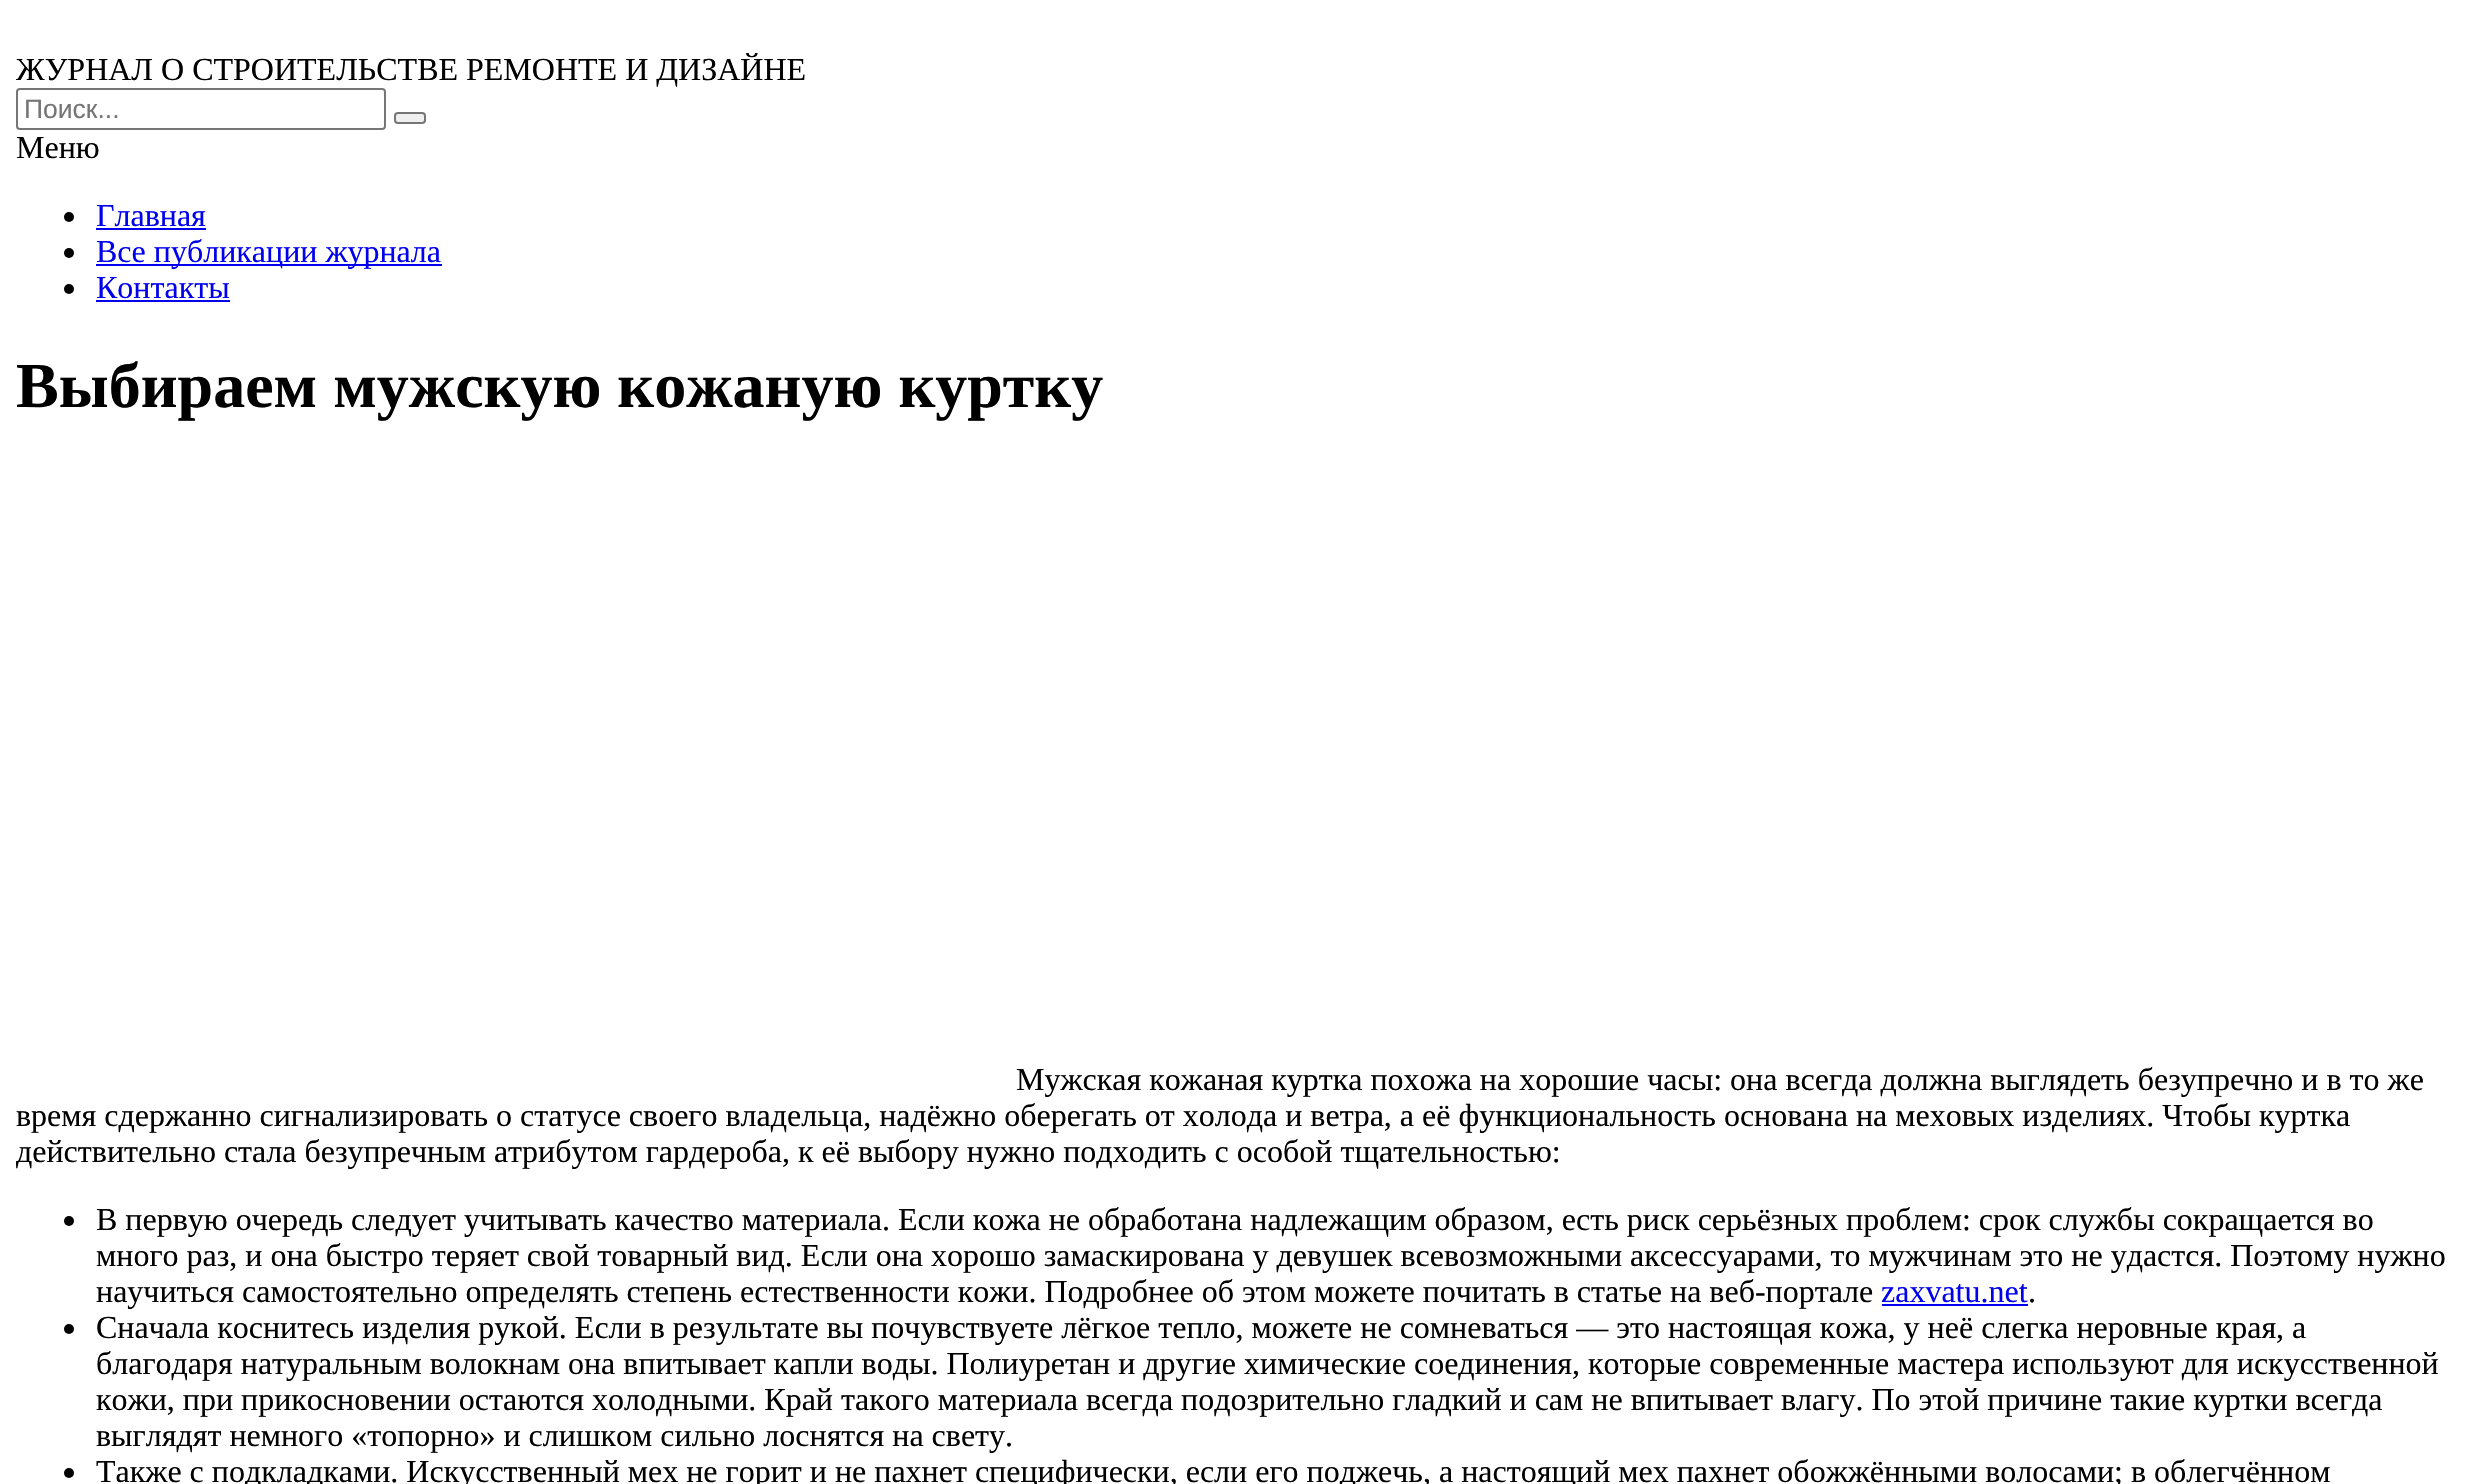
#include "include/core/SkBlurTypes.h"
#include "include/core/SkCanvas.h"
#include "include/core/SkData.h"
#include "include/core/SkFont.h"
#include "include/core/SkFontMgr.h"
#include "include/core/SkImage.h"
#include "include/core/SkMaskFilter.h"
#include "include/core/SkPaint.h"
#include "include/core/SkPathBuilder.h"
#include "include/core/SkTextBlob.h"
#include "include/effects/SkDashPathEffect.h"
#include "include/effects/SkGradientShader.h"
#include "include/utils/SkParsePath.h"

extern sk_sp<SkFontMgr> fontMgr;

void draw(SkCanvas* canvas) {
    SkPaint p;
    p.setAntiAlias(true);
    auto font = [&](const char* family, int weight, float size, bool italic = false) {
        SkFontStyle style(weight, SkFontStyle::kNormal_Width,
            italic ? SkFontStyle::kItalic_Slant : SkFontStyle::kUpright_Slant);
        SkFont result(fontMgr->matchFamilyStyle(family, style), size);
        result.setSubpixel(true);
        return result;
    };
    canvas->clear(0xFFFFFFFF);
    auto font1 = font("Liberation Serif", 400, 32);
    p.setColor(0xFF000000);
    canvas->drawString("ЖУРНАЛ О СТРОИТЕЛЬСТВЕ РЕМОНТЕ И ДИЗАЙНЕ", 16, 80, font1, p);
    p.setStyle(SkPaint::kStroke_Style);
    p.setStrokeWidth(2);
    p.setColor(0xFF767676);
    canvas->drawRoundRect(SkRect::MakeLTRB(17, 89, 385, 129), 3, 3, p);
    auto font2 = font("Liberation Sans", 400, 26.5f);
    p.setStyle(SkPaint::kFill_Style);
    p.setColor(0xFF757575);
    canvas->drawString("Поиск...", 24, 118, font2, p);
    p.setColor(0xFFEFEFEF);
    canvas->drawRoundRect(SkRect::MakeLTRB(395, 113, 425, 123), 3, 3, p);
    p.setStyle(SkPaint::kStroke_Style);
    p.setColor(0xFF767676);
    canvas->drawRoundRect(SkRect::MakeLTRB(395, 113, 425, 123), 3, 3, p);
    p.setStyle(SkPaint::kFill_Style);
    p.setColor(0xFF000000);
    canvas->drawString("Меню", 16, 158, font1, p);
    canvas->drawCircle(69, 217, 5, p);
    p.setColor(0xFF0000EE);
    canvas->drawString("Главная", 96, 226, font1, p);
    canvas->drawRect(SkRect::MakeLTRB(96, 228, 206, 230), p);
    p.setColor(0xFF000000);
    canvas->drawCircle(69, 253, 5, p);
    p.setColor(0xFF0000EE);
    canvas->drawRect(SkRect::MakeLTRB(96, 264, 442, 266), p);
    canvas->drawString("Все публикации журнала", 96, 262, font1, p);
    p.setColor(0xFF000000);
    canvas->drawCircle(69, 289, 5, p);
    p.setColor(0xFF0000EE);
    canvas->drawString("Контакты", 96, 298, font1, p);
    canvas->drawRect(SkRect::MakeLTRB(96, 300, 230, 302), p);
    auto font3 = font("Liberation Serif", 700, 64);
    p.setColor(0xFF000000);
    canvas->drawString("Выбираем мужскую кожаную куртку", 16, 407, font3, p);
    {
        const struct { const char* s; float x, y; } items[] = {
            {"Мужская кожаная куртка похожа на хорошие часы: она всегда должна выглядеть безупречно и в то же", 1016, 1090},
            {"время сдержанно сигнализировать о статусе своего владельца, надёжно оберегать от холода и ветра, а её функциональность основана на меховых изделиях. Чтобы куртка", 16, 1126},
            {"действительно стала безупречным атрибутом гардероба, к её выбору нужно подходить с особой тщательностью:", 16, 1162},
        };
        for (auto [s, x, y] : items) {
            canvas->drawString(s, x, y, font1, p);
        }
    }
    canvas->drawCircle(69, 1221, 5, p);
    {
        const struct { const char* s; float x, y; } items[] = {
            {"В первую очередь следует учитывать качество материала. Если кожа не обработана надлежащим образом, есть риск серьёзных проблем: срок службы сокращается во", 96, 1230},
            {"много раз, и она быстро теряет свой товарный вид. Если она хорошо замаскирована у девушек всевозможными аксессуарами, то мужчинам это не удастся. Поэтому нужно", 96, 1266},
            {"научиться самостоятельно определять степень естественности кожи. Подробнее об этом можете почитать в статье на веб-портале", 96, 1302},
        };
        for (auto [s, x, y] : items) {
            canvas->drawString(s, x, y, font1, p);
        }
    }
    p.setColor(0xFF0000EE);
    canvas->drawString("zaxvatu.net", 1881, 1302, font1, p);
    canvas->drawRect(SkRect::MakeLTRB(1882, 1304, 2028, 1306), p);
    p.setColor(0xFF000000);
    canvas->drawString(".", 2028, 1302, font1, p);
    canvas->drawCircle(69, 1329, 5, p);
    {
        const struct { const char* s; float x, y; } items[] = {
            {"Сначала коснитесь изделия рукой. Если в результате вы почувствуете лёгкое тепло, можете не сомневаться — это настоящая кожа, у неё слегка неровные края, а", 96, 1338},
            {"благодаря натуральным волокнам она впитывает капли воды. Полиуретан и другие химические соединения, которые современные мастера используют для искусственной", 96, 1374},
            {"кожи, при прикосновении остаются холодными. Край такого материала всегда подозрительно гладкий и сам не впитывает влагу. По этой причине такие куртки всегда", 96, 1410},
            {"выглядят немного «топорно» и слишком сильно лоснятся на свету.", 96, 1446},
        };
        for (auto [s, x, y] : items) {
            canvas->drawString(s, x, y, font1, p);
        }
    }
    canvas->drawCircle(69, 1473, 5, p);
    canvas->drawString("Также с подкладками. Искусственный мех не горит и не пахнет специфически, если его поджечь, а настоящий мех пахнет обожжёнными волосами; в облегчённом", 96, 1482, font1, p);
}
